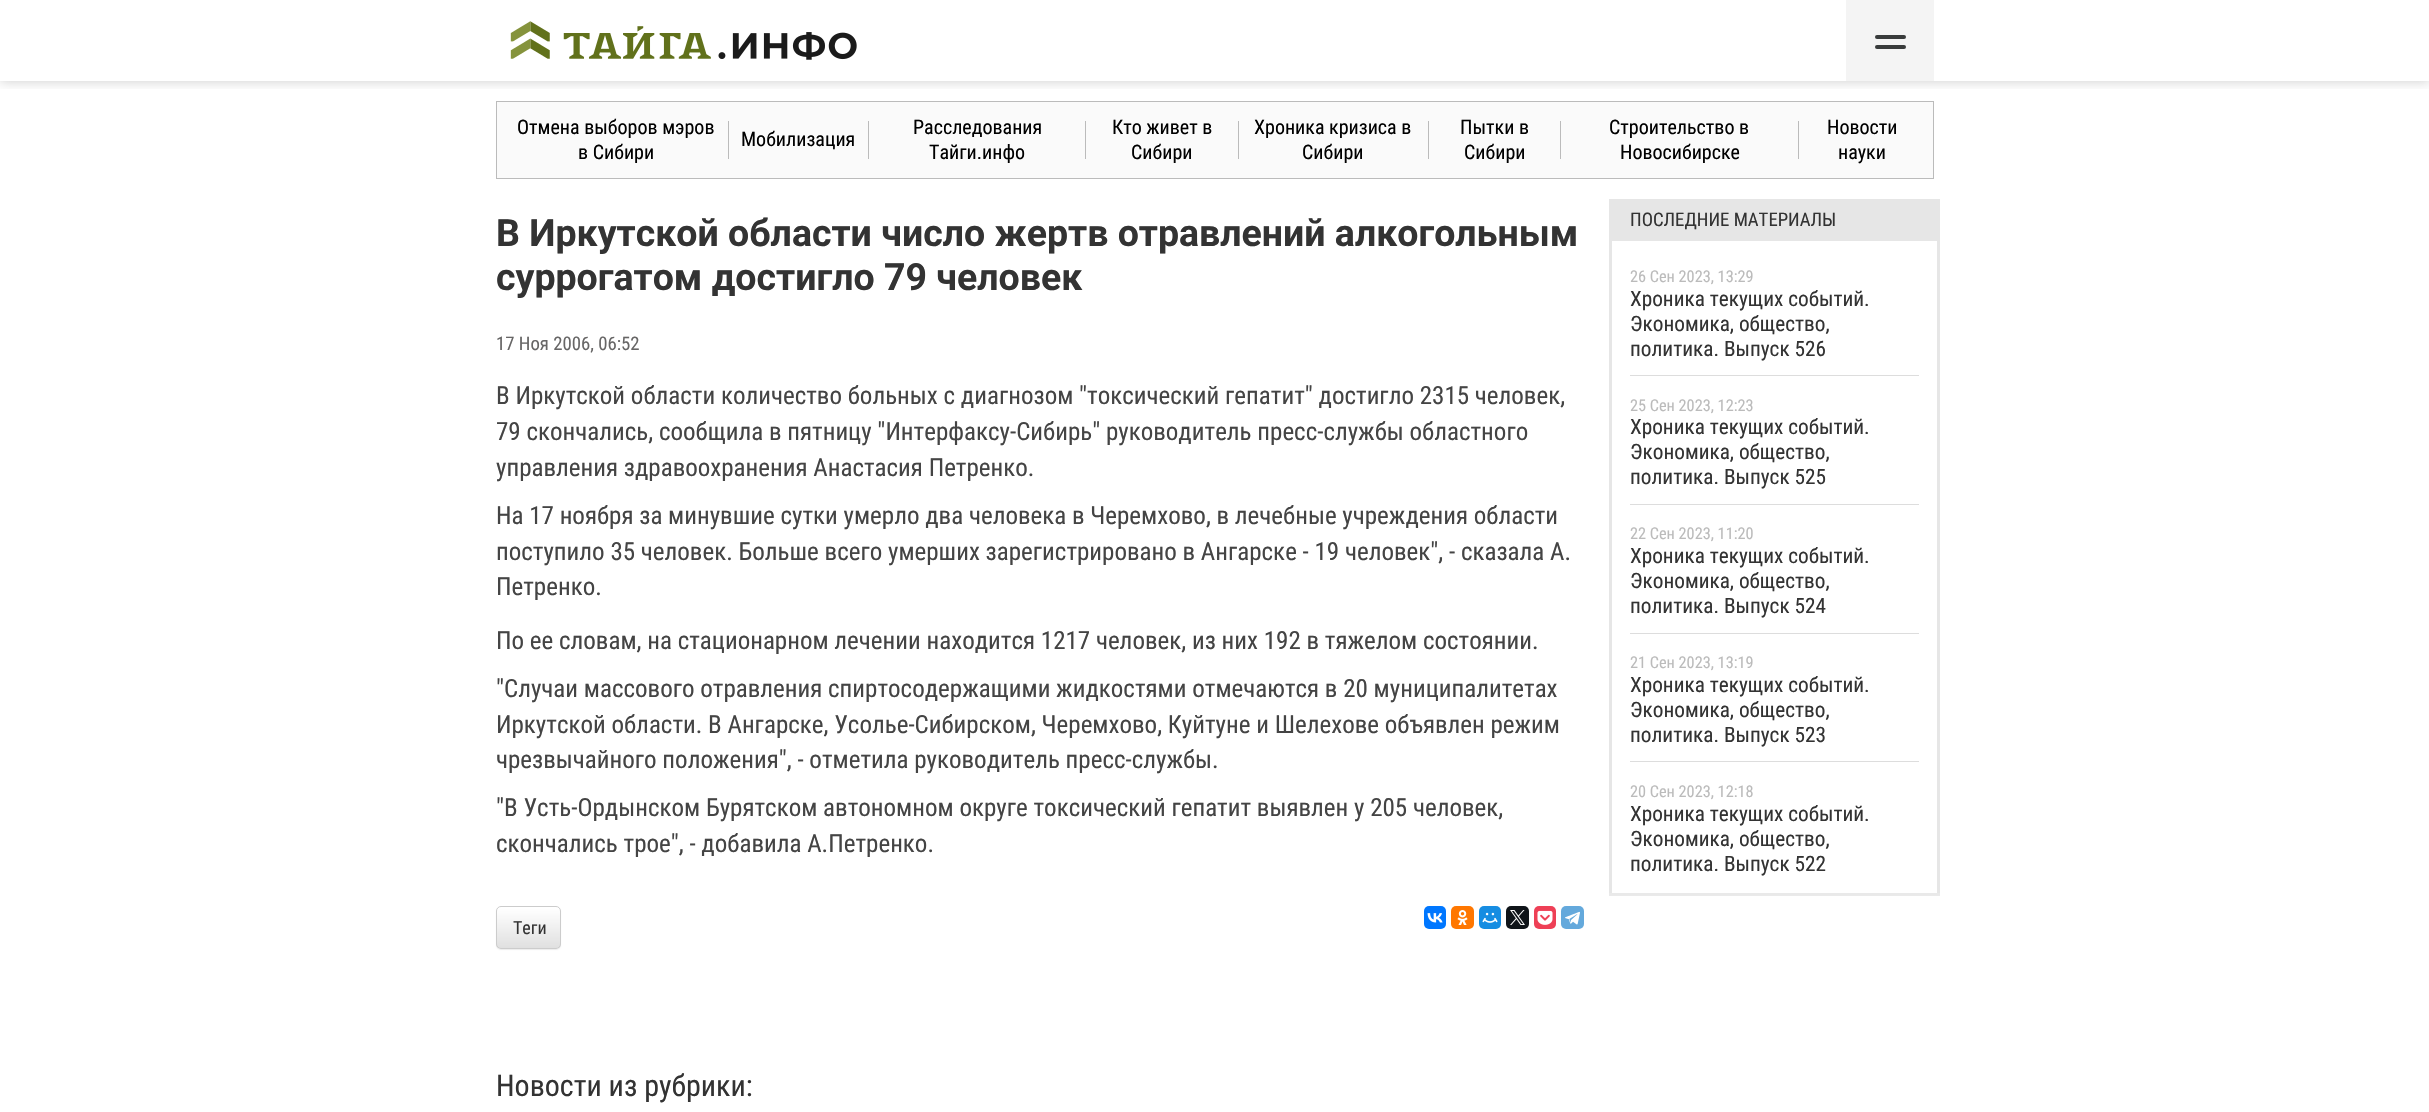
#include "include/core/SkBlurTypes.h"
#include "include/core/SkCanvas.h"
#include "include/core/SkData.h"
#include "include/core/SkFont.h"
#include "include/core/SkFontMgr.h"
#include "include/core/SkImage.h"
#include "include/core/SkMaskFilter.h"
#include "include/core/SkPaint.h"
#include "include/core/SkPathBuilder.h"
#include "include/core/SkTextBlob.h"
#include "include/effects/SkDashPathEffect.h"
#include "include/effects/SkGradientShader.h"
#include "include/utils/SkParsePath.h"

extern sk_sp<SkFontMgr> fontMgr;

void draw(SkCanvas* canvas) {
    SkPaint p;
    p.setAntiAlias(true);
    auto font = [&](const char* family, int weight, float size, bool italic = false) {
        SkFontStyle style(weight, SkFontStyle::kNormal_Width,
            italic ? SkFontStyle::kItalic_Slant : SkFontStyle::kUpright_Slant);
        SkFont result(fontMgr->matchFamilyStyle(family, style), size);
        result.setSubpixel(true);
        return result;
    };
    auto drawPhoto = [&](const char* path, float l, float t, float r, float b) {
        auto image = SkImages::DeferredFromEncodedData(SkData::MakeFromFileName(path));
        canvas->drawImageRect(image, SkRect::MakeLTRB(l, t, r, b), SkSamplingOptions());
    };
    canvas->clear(0xFFFFFFFF);
    canvas->save();
    canvas->clipRect(SkRect::MakeLTRB(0, 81, 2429, 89));
    p.setColor(0x33000000);
    p.setMaskFilter(SkMaskFilter::MakeBlur(kNormal_SkBlurStyle, 6));
    canvas->drawRect(SkRect::MakeLTRB(0, 0, 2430, 81), p);
    p.setMaskFilter(nullptr);
    canvas->restore();
    drawPhoto("media/1.png", 510, 21, 857, 60);
    p.setColor(0xFFF4F4F4);
    canvas->drawRect(SkRect::MakeLTRB(1846, 0, 1934, 81), p);
    p.setColor(0xFF393C3C);
    canvas->drawRoundRect(SkRect::MakeLTRB(1875, 35, 1906, 39), 2, 2, p);
    canvas->drawRoundRect(SkRect::MakeLTRB(1875, 45, 1906, 49), 2, 2, p);
    p.setColor(0xFFFAFAFA);
    canvas->drawRect(SkRect::MakeLTRB(496.5f, 101.5f, 1933.5f, 178.5f), p);
    p.setStyle(SkPaint::kStroke_Style);
    p.setStrokeWidth(1);
    p.setColor(0xFFBBBBBB);
    canvas->drawRect(SkRect::MakeLTRB(496.5f, 101.5f, 1933.5f, 178.5f), p);
    auto font1 = font("Roboto Condensed", 400, 20);
    p.setStyle(SkPaint::kFill_Style);
    p.setColor(0xFF000000);
    canvas->drawString("Отмена выборов мэров", 517, 134, font1, p);
    canvas->drawString("в Сибири", 578, 159, font1, p);
    p.setColor(0xFFBBBBBB);
    canvas->drawRect(SkRect::MakeLTRB(728, 121, 729, 159), p);
    p.setColor(0xFF000000);
    canvas->drawString("Мобилизация", 741, 146, font1, p);
    p.setColor(0xFFBBBBBB);
    canvas->drawRect(SkRect::MakeLTRB(868, 121, 869, 159), p);
    p.setColor(0xFF000000);
    canvas->drawString("Расследования", 913, 134, font1, p);
    canvas->drawString("Тайги.инфо", 929, 159, font1, p);
    p.setColor(0xFFBBBBBB);
    canvas->drawRect(SkRect::MakeLTRB(1085, 121, 1086, 159), p);
    p.setColor(0xFF000000);
    canvas->drawString("Кто живет в", 1112, 134, font1, p);
    canvas->drawString("Сибири", 1131, 159, font1, p);
    p.setColor(0xFFBBBBBB);
    canvas->drawRect(SkRect::MakeLTRB(1238, 121, 1239, 159), p);
    p.setColor(0xFF000000);
    canvas->drawString("Хроника кризиса в", 1254, 134, font1, p);
    canvas->drawString("Сибири", 1302, 159, font1, p);
    p.setColor(0xFFBBBBBB);
    canvas->drawRect(SkRect::MakeLTRB(1428, 121, 1429, 159), p);
    p.setColor(0xFF000000);
    canvas->drawString("Пытки в", 1460, 134, font1, p);
    canvas->drawString("Сибири", 1464, 159, font1, p);
    p.setColor(0xFFBBBBBB);
    canvas->drawRect(SkRect::MakeLTRB(1560, 121, 1561, 159), p);
    p.setColor(0xFF000000);
    canvas->drawString("Строительство в", 1609, 134, font1, p);
    canvas->drawString("Новосибирске", 1620, 159, font1, p);
    p.setColor(0xFFBBBBBB);
    canvas->drawRect(SkRect::MakeLTRB(1798, 121, 1799, 159), p);
    p.setColor(0xFF000000);
    canvas->drawString("Новости", 1827, 134, font1, p);
    canvas->drawString("науки", 1838, 159, font1, p);
    auto font2 = font("Roboto", 700, 37.5f);
    p.setColor(0xFF333333);
    canvas->drawString("В Иркутской области число жертв отравлений алкогольным", 496, 246, font2, p);
    canvas->drawString("суррогатом достигло 79 человек", 496, 290, font2, p);
    auto font3 = font("Roboto Condensed", 400, 18.75f);
    p.setColor(0xFF676666);
    canvas->drawString("17 Ноя 2006, 06:52", 496, 350, font3, p);
    auto font4 = font("Roboto Condensed", 400, 25);
    p.setColor(0xFF444444);
    {
        const struct { const char* s; float x, y; } items[] = {
            {"В Иркутской области количество больных с диагнозом \"токсический гепатит\" достигло 2315 человек,", 496, 404},
            {"79 скончались, сообщила в пятницу \"Интерфаксу-Сибирь\" руководитель пресс-службы областного", 496, 440},
            {"управления здравоохранения Анастасия Петренко.", 496, 476},
            {"На 17 ноября за минувшие сутки умерло два человека в Черемхово, в лечебные учреждения области", 496, 524},
            {"поступило 35 человек. Больше всего умерших зарегистрировано в Ангарске - 19 человек\", - сказала А.", 496, 560},
            {"Петренко.", 496, 595},
            {"По ее словам, на стационарном лечении находится 1217 человек, из них 192 в тяжелом состоянии.", 496, 649},
            {"\"Случаи массового отравления спиртосодержащими жидкостями отмечаются в 20 муниципалитетах", 496, 697},
            {"Иркутской области. В Ангарске, Усолье-Сибирском, Черемхово, Куйтуне и Шелехове объявлен режим", 496, 733},
            {"чрезвычайного положения\", - отметила руководитель пресс-службы.", 496, 768},
            {"\"В Усть-Ордынском Бурятском автономном округе токсический гепатит выявлен у 205 человек,", 496, 816},
            {"скончались трое\", - добавила А.Петренко.", 496, 852},
        };
        for (auto [s, x, y] : items) {
            canvas->drawString(s, x, y, font4, p);
        }
    }
    p.setColor(0x12000000);
    p.setMaskFilter(SkMaskFilter::MakeBlur(kNormal_SkBlurStyle, 0.5f));
    canvas->drawRoundRect(SkRect::MakeLTRB(496, 908, 561, 950), 5, 5, p);
    p.setMaskFilter(nullptr);
    p.setColor(0xFFFFFFFF);
    canvas->drawRoundRect(SkRect::MakeLTRB(496, 906, 561, 949), 5, 5, p);
    canvas->save();
    canvas->clipPath(SkPathBuilder().moveTo(501, 906).lineTo(556, 906).cubicTo(559, 906, 561, 908, 561, 911).lineTo(561, 944).cubicTo(561, 947, 559, 949, 556, 949).lineTo(501, 949).cubicTo(498, 949, 496, 947, 496, 944).lineTo(496, 911).cubicTo(496, 908, 498, 906, 501, 906).close().detach(), true);
    {
        const SkColor colors[] = {0xFFFFFFFF, 0xFFE0E0E0};
        const float stops[] = {0, 1};
        const SkPoint ends[] = {{529, 908}, {529, 948}};
        p.setShader(SkGradientShader::MakeLinear(ends, colors, stops, 2, SkTileMode::kClamp));
        p.setAlpha(255);
    }
    canvas->drawRect(SkRect::MakeLTRB(496, 908, 561, 948), p);
    canvas->restore();
    p.setStyle(SkPaint::kStroke_Style);
    p.setShader(nullptr);
    p.setColor(0xFFCCCCCC);
    canvas->drawRoundRect(SkRect::MakeLTRB(496.5f, 906.5f, 560.5f, 948.5f), 4.5f, 4.5f, p);
    auto font5 = font("Roboto Condensed", 400, 18);
    p.setStyle(SkPaint::kFill_Style);
    p.setColor(0xFF333333);
    canvas->drawString("Теги", 513, 934, font5, p);
    p.setColor(0xFF0077FF);
    canvas->drawRoundRect(SkRect::MakeLTRB(1424, 906, 1446, 929), 5, 5, p);
    drawPhoto("media/2.png", 1427, 913, 1443, 923);
    p.setColor(0xFFFF7700);
    canvas->drawRoundRect(SkRect::MakeLTRB(1451, 906, 1474, 929), 5, 5, p);
    drawPhoto("media/3.png", 1457, 910, 1468, 925);
    p.setColor(0xFF168DE2);
    canvas->drawRoundRect(SkRect::MakeLTRB(1479, 906, 1501, 929), 5, 5, p);
    drawPhoto("media/4.png", 1482, 912, 1498, 923);
    p.setColor(0xFF0F1419);
    canvas->drawRoundRect(SkRect::MakeLTRB(1506, 906, 1529, 929), 5, 5, p);
    drawPhoto("media/5.png", 1510, 910, 1525, 925);
    p.setColor(0xFFEE4056);
    canvas->drawRoundRect(SkRect::MakeLTRB(1534, 906, 1556, 929), 5, 5, p);
    drawPhoto("media/6.png", 1537, 910, 1553, 925);
    p.setColor(0xFF64A9DC);
    canvas->drawRoundRect(SkRect::MakeLTRB(1561, 906, 1584, 929), 5, 5, p);
    drawPhoto("media/7.png", 1565, 911, 1580, 925);
    auto font6 = font("Roboto Condensed", 400, 30);
    p.setColor(0xFF333333);
    canvas->drawString("Новости из рубрики:", 496, 1096, font6, p);
    p.setStyle(SkPaint::kStroke_Style);
    p.setStrokeWidth(3);
    p.setColor(0xFFE6E6E6);
    canvas->drawRect(SkRect::MakeLTRB(1610.5f, 200.5f, 1938.5f, 894.5f), p);
    p.setStyle(SkPaint::kFill_Style);
    canvas->drawRect(SkRect::MakeLTRB(1612, 202, 1937, 241), p);
    p.setColor(0xFF333333);
    canvas->drawString("ПОСЛЕДНИЕ МАТЕРИАЛЫ", 1630, 226, font3, p);
    auto font7 = font("Roboto Condensed", 400, 16.25f);
    p.setColor(0xFFBBBBBB);
    canvas->drawString("26 Сен 2023, 13:29", 1630, 282, font7, p);
    auto font8 = font("Roboto Condensed", 400, 21.25f);
    p.setColor(0xFF333333);
    {
        const struct { const char* s; float x, y; } items[] = {
            {"Хроника текущих событий.", 1630, 306},
            {"Экономика, общество,", 1630, 331},
            {"политика. Выпуск 526", 1630, 356},
        };
        for (auto [s, x, y] : items) {
            canvas->drawString(s, x, y, font8, p);
        }
    }
    p.setColor(0xFFDDDDDD);
    canvas->drawRect(SkRect::MakeLTRB(1630, 375, 1919, 376), p);
    p.setColor(0xFFBBBBBB);
    canvas->drawString("25 Сен 2023, 12:23", 1630, 411, font7, p);
    p.setColor(0xFF333333);
    {
        const struct { const char* s; float x, y; } items[] = {
            {"Хроника текущих событий.", 1630, 434},
            {"Экономика, общество,", 1630, 459},
            {"политика. Выпуск 525", 1630, 484},
        };
        for (auto [s, x, y] : items) {
            canvas->drawString(s, x, y, font8, p);
        }
    }
    p.setColor(0xFFDDDDDD);
    canvas->drawRect(SkRect::MakeLTRB(1630, 504, 1919, 505), p);
    p.setColor(0xFFBBBBBB);
    canvas->drawString("22 Сен 2023, 11:20", 1630, 539, font7, p);
    p.setColor(0xFF333333);
    {
        const struct { const char* s; float x, y; } items[] = {
            {"Хроника текущих событий.", 1630, 563},
            {"Экономика, общество,", 1630, 588},
            {"политика. Выпуск 524", 1630, 613},
        };
        for (auto [s, x, y] : items) {
            canvas->drawString(s, x, y, font8, p);
        }
    }
    p.setColor(0xFFDDDDDD);
    canvas->drawRect(SkRect::MakeLTRB(1630, 633, 1919, 634), p);
    p.setColor(0xFFBBBBBB);
    canvas->drawString("21 Сен 2023, 13:19", 1630, 668, font7, p);
    p.setColor(0xFF333333);
    {
        const struct { const char* s; float x, y; } items[] = {
            {"Хроника текущих событий.", 1630, 692},
            {"Экономика, общество,", 1630, 717},
            {"политика. Выпуск 523", 1630, 742},
        };
        for (auto [s, x, y] : items) {
            canvas->drawString(s, x, y, font8, p);
        }
    }
    p.setColor(0xFFDDDDDD);
    canvas->drawRect(SkRect::MakeLTRB(1630, 761, 1919, 762), p);
    p.setColor(0xFFBBBBBB);
    canvas->drawString("20 Сен 2023, 12:18", 1630, 797, font7, p);
    p.setColor(0xFF333333);
    {
        const struct { const char* s; float x, y; } items[] = {
            {"Хроника текущих событий.", 1630, 821},
            {"Экономика, общество,", 1630, 846},
            {"политика. Выпуск 522", 1630, 871},
        };
        for (auto [s, x, y] : items) {
            canvas->drawString(s, x, y, font8, p);
        }
    }
    {
        const SkColor colors[] = {0x00FFFFFF, 0xFFFFFFFF};
        const float stops[] = {0, 1};
        const SkPoint ends[] = {{1774, 890}, {1774, 921}};
        p.setShader(SkGradientShader::MakeLinear(ends, colors, stops, 2, SkTileMode::kClamp));
        p.setAlpha(255);
    }
    canvas->drawRect(SkRect::MakeLTRB(1609, 893, 1940, 896), p);
}
